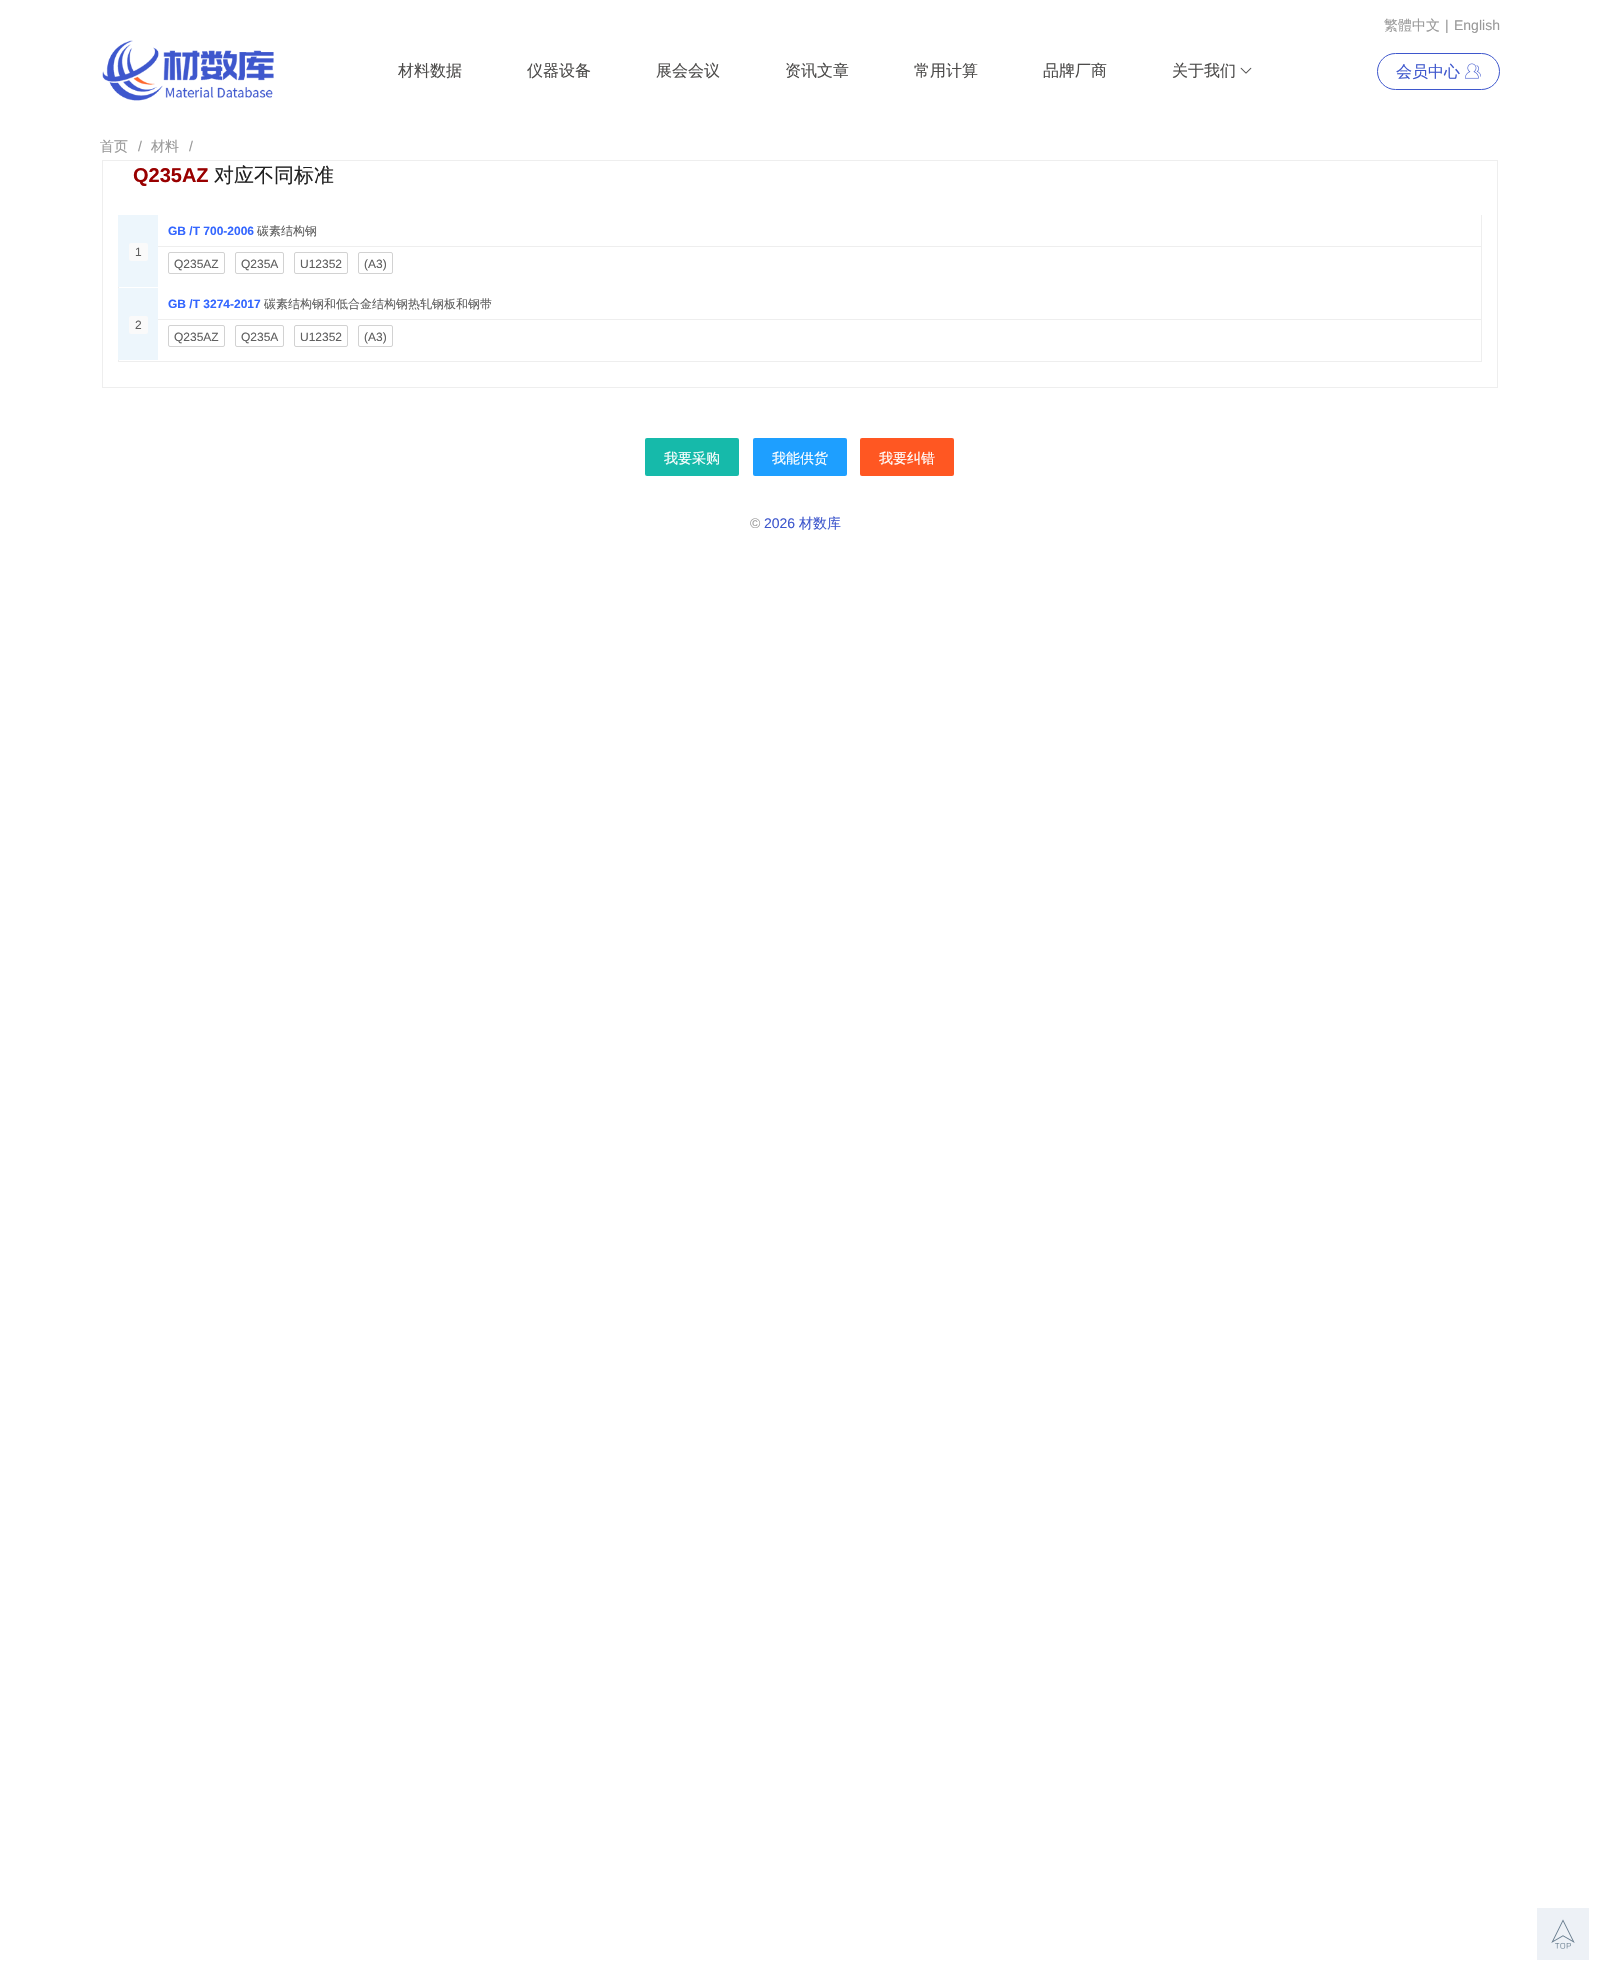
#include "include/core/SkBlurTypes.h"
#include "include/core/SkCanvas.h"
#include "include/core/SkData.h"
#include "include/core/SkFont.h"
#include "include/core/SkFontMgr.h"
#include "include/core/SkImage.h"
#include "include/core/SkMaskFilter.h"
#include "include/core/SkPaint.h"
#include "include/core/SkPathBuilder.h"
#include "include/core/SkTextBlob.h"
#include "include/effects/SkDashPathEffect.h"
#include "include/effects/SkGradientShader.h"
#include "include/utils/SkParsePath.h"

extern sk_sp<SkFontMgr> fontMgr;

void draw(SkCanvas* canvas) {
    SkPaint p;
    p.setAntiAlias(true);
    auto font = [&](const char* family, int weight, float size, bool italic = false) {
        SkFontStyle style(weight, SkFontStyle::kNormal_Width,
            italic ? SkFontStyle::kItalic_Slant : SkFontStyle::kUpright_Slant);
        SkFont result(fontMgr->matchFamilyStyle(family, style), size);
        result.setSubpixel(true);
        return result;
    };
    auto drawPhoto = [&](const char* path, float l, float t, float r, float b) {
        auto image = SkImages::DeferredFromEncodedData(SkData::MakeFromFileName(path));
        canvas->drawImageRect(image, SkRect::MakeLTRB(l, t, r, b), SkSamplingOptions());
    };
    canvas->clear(0xFFFFFFFF);
    auto font1 = font("WenQuanYi Zen Hei", 500, 14);
    p.setColor(0xFF999999);
    canvas->drawString("繁體中文", 1384, 30, font1, p);
    auto font2 = font("Liberation Sans", 400, 14);
    canvas->drawString("|", 1445, 30, font2, p);
    canvas->drawString("English", 1454, 30, font2, p);
    drawPhoto("media/1.png", 102, 40, 274, 101);
    auto font3 = font("WenQuanYi Zen Hei", 500, 16);
    p.setColor(0xFF4D4C4B);
    {
        const struct { const char* s; float x, y; } items[] = {
            {"材料数据", 398, 76},
            {"仪器设备", 527, 76},
            {"展会会议", 656, 76},
            {"资讯文章", 785, 76},
            {"常用计算", 914, 76},
            {"品牌厂商", 1043, 76},
            {"关于我们", 1172, 76},
        };
        for (auto [s, x, y] : items) {
            canvas->drawString(s, x, y, font3, p);
        }
    }
    drawPhoto("media/2.png", 1240, 67, 1252, 74);
    p.setStyle(SkPaint::kStroke_Style);
    p.setStrokeWidth(1);
    p.setColor(0xFF3E57CD);
    canvas->drawRoundRect(SkRect::MakeLTRB(1377.5f, 53.5f, 1499.5f, 89.5f), 18, 18, p);
    p.setStyle(SkPaint::kFill_Style);
    canvas->drawString("会员中心", 1396, 77, font3, p);
    drawPhoto("media/3.png", 1465, 63, 1481, 79);
    p.setColor(0xFF999999);
    canvas->drawString("首页", 100, 151, font1, p);
    canvas->drawString("/", 138, 151, font2, p);
    canvas->drawString("材料", 151, 151, font1, p);
    canvas->drawString("/", 189, 151, font2, p);
    p.setStyle(SkPaint::kStroke_Style);
    p.setColor(0xFFEEEEEE);
    canvas->drawRect(SkRect::MakeLTRB(102.5f, 160.5f, 1497.5f, 387.5f), p);
    auto font4 = font("Liberation Sans", 700, 20);
    p.setStyle(SkPaint::kFill_Style);
    p.setColor(0xFF990000);
    canvas->drawString("Q235AZ", 133, 182, font4, p);
    auto font5 = font("WenQuanYi Zen Hei", 500, 20);
    p.setColor(0xFF212121);
    canvas->drawString("对应不同标准", 214, 182, font5, p);
    {
        const struct { float l, t, r, b; SkColor color; } items[] = {
            {1481, 215, 1482, 362, 0xFFEEEEEE},
            {118, 361, 1482, 362, 0xFFEEEEEE},
            {118, 287, 119, 362, 0xFFEEEEEE},
            {158, 246, 1482, 247, 0xFFEEEEEE},
        };
        for (auto [l, t, r, b, color] : items) {
            p.setColor(color);
            canvas->drawRect(SkRect::MakeLTRB(l, t, r, b), p);
        }
    }
    auto font6 = font("Liberation Sans", 700, 12);
    p.setColor(0xFF3366FF);
    canvas->drawString("GB /T 700-2006", 168, 235, font6, p);
    auto font7 = font("WenQuanYi Zen Hei", 500, 12);
    p.setColor(0xFF5F5F5F);
    canvas->drawString("碳素结构钢", 257, 235, font7, p);
    p.setColor(0xFFEDF6FC);
    canvas->drawRect(SkRect::MakeLTRB(118, 215, 158, 287), p);
    p.setColor(0xFFFAFAFA);
    canvas->drawRoundRect(SkRect::MakeLTRB(129, 243, 148, 261), 2, 2, p);
    auto font8 = font("Liberation Sans", 400, 12);
    p.setColor(0xFF5F5F5F);
    canvas->drawString("1", 135, 256, font8, p);
    p.setStyle(SkPaint::kStroke_Style);
    p.setColor(0xFFD2D2D2);
    canvas->drawRoundRect(SkRect::MakeLTRB(168.5f, 252.5f, 224.5f, 273.5f), 1.5f, 1.5f, p);
    p.setStyle(SkPaint::kFill_Style);
    p.setColor(0xFF5F5F5F);
    canvas->drawString("Q235AZ", 174, 268, font8, p);
    p.setStyle(SkPaint::kStroke_Style);
    p.setColor(0xFFD2D2D2);
    canvas->drawRoundRect(SkRect::MakeLTRB(235.5f, 252.5f, 283.5f, 273.5f), 1.5f, 1.5f, p);
    p.setStyle(SkPaint::kFill_Style);
    p.setColor(0xFF5F5F5F);
    canvas->drawString("Q235A", 241, 268, font8, p);
    p.setStyle(SkPaint::kStroke_Style);
    p.setColor(0xFFD2D2D2);
    canvas->drawRoundRect(SkRect::MakeLTRB(294.5f, 252.5f, 347.5f, 273.5f), 1.5f, 1.5f, p);
    p.setStyle(SkPaint::kFill_Style);
    p.setColor(0xFF5F5F5F);
    canvas->drawString("U12352", 300, 268, font8, p);
    p.setStyle(SkPaint::kStroke_Style);
    p.setColor(0xFFD2D2D2);
    canvas->drawRoundRect(SkRect::MakeLTRB(358.5f, 252.5f, 392.5f, 273.5f), 1.5f, 1.5f, p);
    p.setStyle(SkPaint::kFill_Style);
    p.setColor(0xFF5F5F5F);
    canvas->drawString("(A3)", 364, 268, font8, p);
    p.setColor(0xFFEEEEEE);
    canvas->drawRect(SkRect::MakeLTRB(158, 319, 1482, 320), p);
    p.setColor(0xFF3366FF);
    canvas->drawString("GB /T 3274-2017", 168, 308, font6, p);
    p.setColor(0xFF5F5F5F);
    canvas->drawString("碳素结构钢和低合金结构钢热轧钢板和钢带", 264, 308, font7, p);
    p.setColor(0xFFEDF6FC);
    canvas->drawRect(SkRect::MakeLTRB(118, 288, 158, 360), p);
    p.setColor(0xFFFAFAFA);
    canvas->drawRoundRect(SkRect::MakeLTRB(129, 316, 148, 334), 2, 2, p);
    p.setColor(0xFF5F5F5F);
    canvas->drawString("2", 135, 329, font8, p);
    p.setStyle(SkPaint::kStroke_Style);
    p.setColor(0xFFD2D2D2);
    canvas->drawRoundRect(SkRect::MakeLTRB(168.5f, 325.5f, 224.5f, 346.5f), 1.5f, 1.5f, p);
    p.setStyle(SkPaint::kFill_Style);
    p.setColor(0xFF5F5F5F);
    canvas->drawString("Q235AZ", 174, 341, font8, p);
    p.setStyle(SkPaint::kStroke_Style);
    p.setColor(0xFFD2D2D2);
    canvas->drawRoundRect(SkRect::MakeLTRB(235.5f, 325.5f, 283.5f, 346.5f), 1.5f, 1.5f, p);
    p.setStyle(SkPaint::kFill_Style);
    p.setColor(0xFF5F5F5F);
    canvas->drawString("Q235A", 241, 341, font8, p);
    p.setStyle(SkPaint::kStroke_Style);
    p.setColor(0xFFD2D2D2);
    canvas->drawRoundRect(SkRect::MakeLTRB(294.5f, 325.5f, 347.5f, 346.5f), 1.5f, 1.5f, p);
    p.setStyle(SkPaint::kFill_Style);
    p.setColor(0xFF5F5F5F);
    canvas->drawString("U12352", 300, 341, font8, p);
    p.setStyle(SkPaint::kStroke_Style);
    p.setColor(0xFFD2D2D2);
    canvas->drawRoundRect(SkRect::MakeLTRB(358.5f, 325.5f, 392.5f, 346.5f), 1.5f, 1.5f, p);
    p.setStyle(SkPaint::kFill_Style);
    p.setColor(0xFF5F5F5F);
    canvas->drawString("(A3)", 364, 341, font8, p);
    p.setColor(0xFF16BAAA);
    canvas->drawRoundRect(SkRect::MakeLTRB(645, 438, 739, 476), 2, 2, p);
    p.setColor(0xFFFFFFFF);
    canvas->drawString("我要采购", 664, 463, font1, p);
    p.setColor(0xFF1E9FFF);
    canvas->drawRoundRect(SkRect::MakeLTRB(753, 438, 847, 476), 2, 2, p);
    p.setColor(0xFFFFFFFF);
    canvas->drawString("我能供货", 772, 463, font1, p);
    p.setColor(0xFFFF5722);
    canvas->drawRoundRect(SkRect::MakeLTRB(860, 438, 954, 476), 2, 2, p);
    p.setColor(0xFFFFFFFF);
    canvas->drawString("我要纠错", 879, 463, font1, p);
    p.setColor(0xFF999999);
    canvas->drawString("©", 750, 528, font2, p);
    p.setColor(0xFF3E57CD);
    canvas->drawString("2026", 764, 528, font2, p);
    canvas->drawString("材数库", 799, 528, font1, p);
    p.setColor(0xFFEDF1F6);
    canvas->drawRect(SkRect::MakeLTRB(1537, 1908, 1589, 1960), p);
    drawPhoto("media/4.png", 1551, 1919, 1575, 1949);
}
